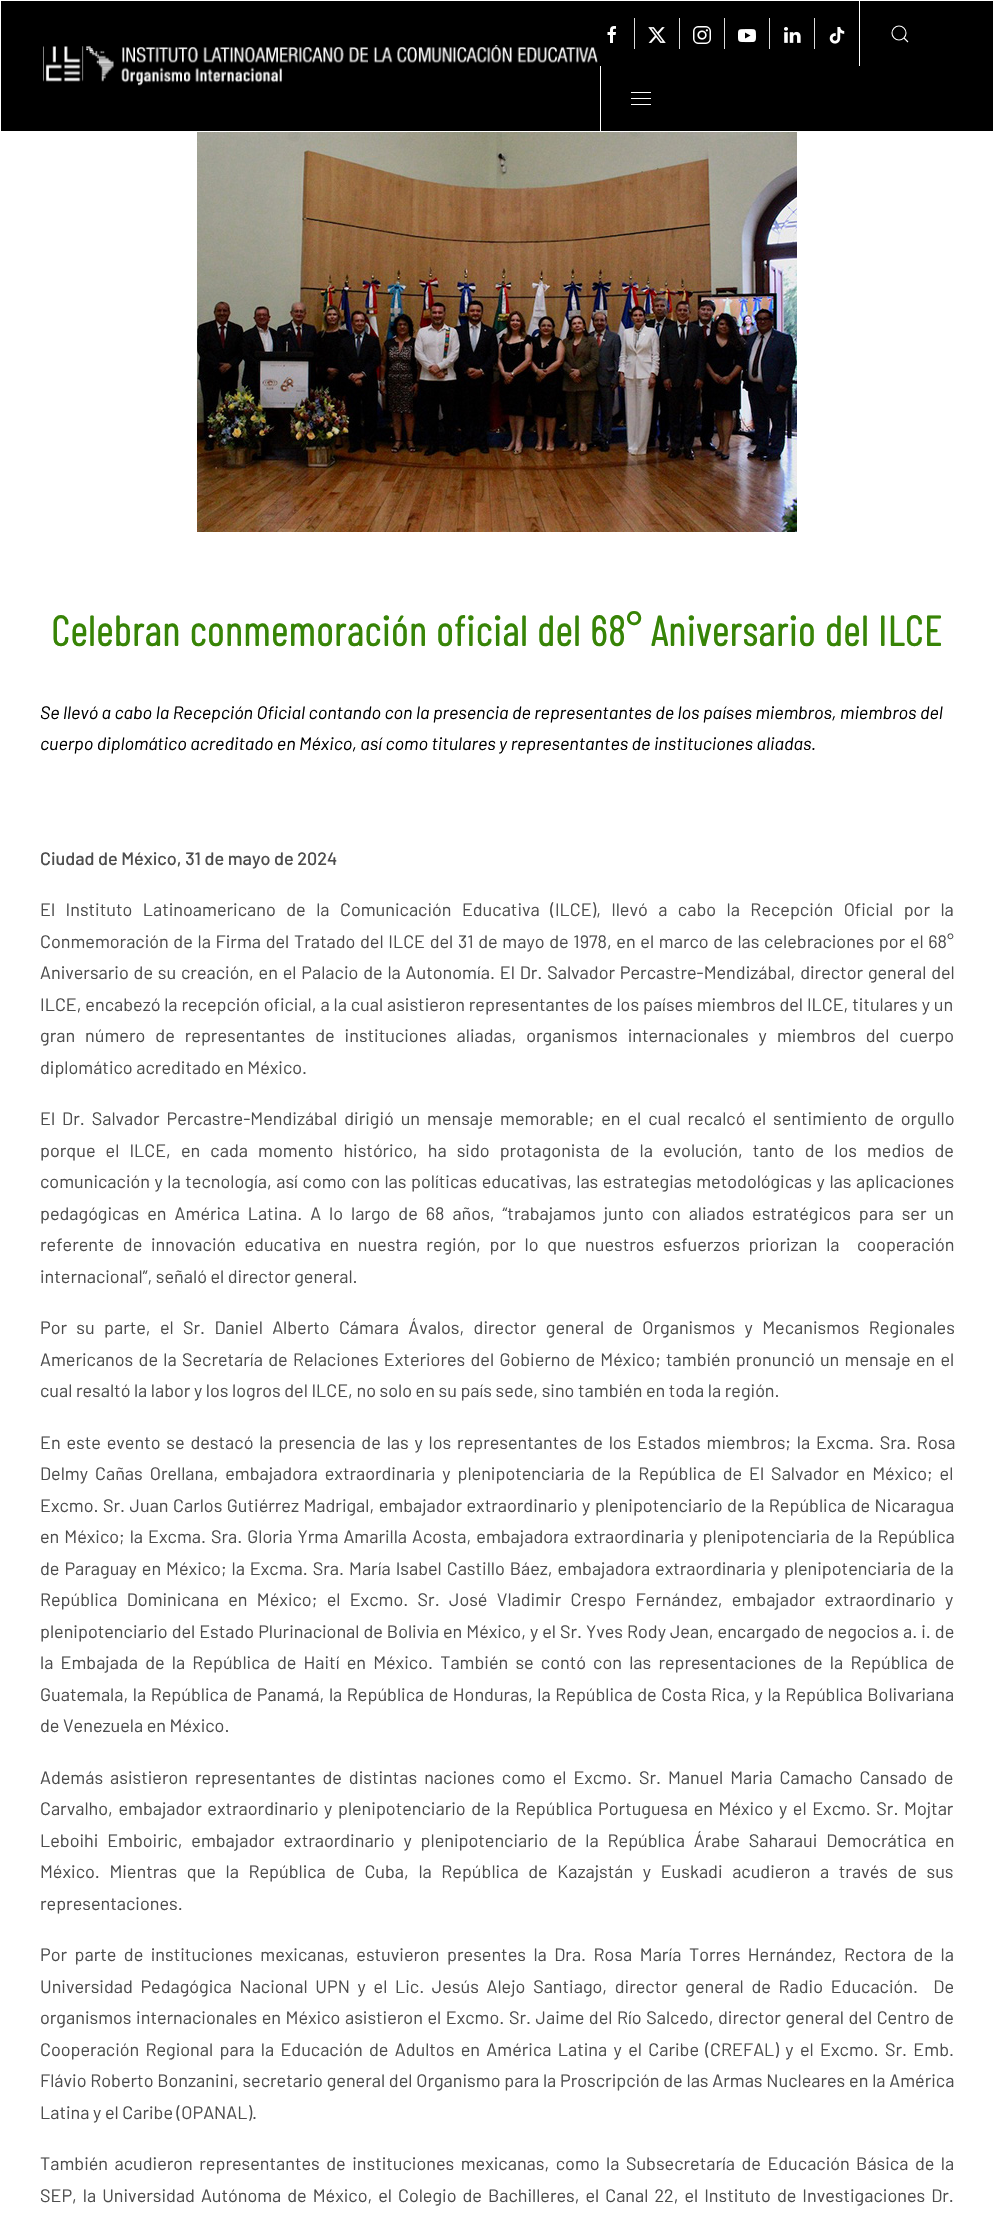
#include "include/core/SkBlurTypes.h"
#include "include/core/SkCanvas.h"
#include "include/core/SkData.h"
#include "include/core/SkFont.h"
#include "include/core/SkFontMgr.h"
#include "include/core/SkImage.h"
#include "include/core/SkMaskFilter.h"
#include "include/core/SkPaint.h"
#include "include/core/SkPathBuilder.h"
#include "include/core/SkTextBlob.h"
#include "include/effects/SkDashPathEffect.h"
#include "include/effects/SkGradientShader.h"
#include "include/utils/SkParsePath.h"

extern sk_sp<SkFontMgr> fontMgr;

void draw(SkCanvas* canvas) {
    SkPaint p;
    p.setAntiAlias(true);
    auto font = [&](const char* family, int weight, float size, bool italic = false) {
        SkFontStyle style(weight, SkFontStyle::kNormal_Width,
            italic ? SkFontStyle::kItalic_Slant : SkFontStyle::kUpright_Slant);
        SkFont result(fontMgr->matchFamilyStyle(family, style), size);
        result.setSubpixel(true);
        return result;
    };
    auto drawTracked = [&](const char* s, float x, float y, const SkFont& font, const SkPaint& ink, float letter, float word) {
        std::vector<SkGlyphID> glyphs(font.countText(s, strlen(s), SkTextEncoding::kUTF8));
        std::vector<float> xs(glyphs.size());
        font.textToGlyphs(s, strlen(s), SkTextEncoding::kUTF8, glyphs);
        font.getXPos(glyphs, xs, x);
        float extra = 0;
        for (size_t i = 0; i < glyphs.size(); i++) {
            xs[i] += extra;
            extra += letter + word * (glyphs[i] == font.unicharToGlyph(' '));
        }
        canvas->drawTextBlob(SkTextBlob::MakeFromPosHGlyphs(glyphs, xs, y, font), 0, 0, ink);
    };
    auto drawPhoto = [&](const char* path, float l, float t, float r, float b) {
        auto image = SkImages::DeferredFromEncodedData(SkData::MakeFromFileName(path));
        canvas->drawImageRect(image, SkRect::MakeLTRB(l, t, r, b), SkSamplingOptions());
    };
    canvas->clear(0xFF000000);
    p.setStyle(SkPaint::kStroke_Style);
    p.setStrokeWidth(1);
    p.setColor(0xFFFFFFFF);
    canvas->drawRect(SkRect::MakeLTRB(0.5f, 0.5f, 993.5f, 131.5f), p);
    drawPhoto("media/1.png", 43, 45, 598, 86);
    p.setStyle(SkPaint::kFill_Style);
    p.setColor(0xFFDDDDDD);
    canvas->drawRect(SkRect::MakeLTRB(634, 18, 635, 49), p);
    drawPhoto("media/2.png", 607, 26, 616, 43);
    canvas->drawRect(SkRect::MakeLTRB(679, 18, 680, 49), p);
    drawPhoto("media/3.png", 648, 27, 666, 43);
    canvas->drawRect(SkRect::MakeLTRB(724, 18, 725, 49), p);
    drawPhoto("media/4.png", 693, 26, 711, 44);
    canvas->drawRect(SkRect::MakeLTRB(769, 18, 770, 49), p);
    drawPhoto("media/5.png", 738, 29, 756, 43);
    canvas->drawRect(SkRect::MakeLTRB(814, 18, 815, 49), p);
    drawPhoto("media/6.png", 784, 27, 801, 43);
    drawPhoto("media/7.png", 829, 27, 845, 44);
    p.setColor(0xFFFFFFFF);
    canvas->drawRect(SkRect::MakeLTRB(859, 1, 860, 66), p);
    p.setStyle(SkPaint::kStroke_Style);
    p.setStrokeWidth(1.1f);
    canvas->drawCircle(899, 33, 7, p);
    canvas->drawPath(SkPathBuilder().moveTo(904, 38).lineTo(908, 42).close().detach(), p);
    p.setStyle(SkPaint::kFill_Style);
    {
        const struct { float l, t, r, b; SkColor color; } items[] = {
            {600, 66, 601, 131, 0xFFFFFFFF},
            {631, 92, 651, 93, 0xFFFFFFFF},
            {631, 98, 651, 99, 0xFFFFFFFF},
            {631, 104, 651, 105, 0xFFFFFFFF},
            {0, 132, 994, 2215, 0xFFFFFFFF},
        };
        for (auto [l, t, r, b, color] : items) {
            p.setColor(color);
            canvas->drawRect(SkRect::MakeLTRB(l, t, r, b), p);
        }
    }
    drawPhoto("media/8.png", 197, 132, 797, 532);
    auto font1 = font("Barlow Condensed", 700, 42);
    p.setColor(0xFF378406);
    drawTracked("Celebran conmemoración oficial del 68° Aniversario del ILCE", 51, 646, font1, p, 0.75f, 0);
    auto font2 = font("Barlow", 400, 18, true);
    p.setColor(0xFF000000);
    canvas->drawString("Se llevó a cabo la Recepción Oficial contando con la presencia de representantes de los países miembros, miembros del", 40, 719, font2, p);
    canvas->drawString("cuerpo diplomático acreditado en México, así como titulares y representantes de instituciones aliadas.", 40, 750, font2, p);
    auto font3 = font("Barlow", 500, 18);
    p.setColor(0xFF4D4D4D);
    canvas->drawString("Ciudad de México, 31 de mayo de 2024", 40, 865, font3, p);
    auto font4 = font("Barlow", 400, 18);
    drawTracked("El Instituto Latinoamericano de la Comunicación Educativa (ILCE), llevó a cabo la Recepción Oficial por la", 40, 916, font4, p, 0, 6.9f);
    drawTracked("Conmemoración de la Firma del Tratado del ILCE del 31 de mayo de 1978, en el marco de las celebraciones por el 68°", 40, 948, font4, p, 0, 1.1f);
    drawTracked("Aniversario de su creación, en el Palacio de la Autonomía. El Dr. Salvador Percastre-Mendizábal, director general del", 40, 979, font4, p, 0, 1.25f);
    drawTracked("ILCE, encabezó la recepción oficial, a la cual asistieron representantes de los países miembros del ILCE, titulares y un", 40, 1011, font4, p, 0, 0.3f);
    drawTracked("gran número de representantes de instituciones aliadas, organismos internacionales y miembros del cuerpo", 40, 1042, font4, p, 0, 6.4f);
    canvas->drawString("diplomático acreditado en México.", 40, 1074, font4, p);
    drawTracked("El Dr. Salvador Percastre-Mendizábal dirigió un mensaje memorable; en el cual recalcó el sentimiento de orgullo", 40, 1125, font4, p, 0, 3.4f);
    drawTracked("porque el ILCE, en cada momento histórico, ha sido protagonista de la evolución, tanto de los medios de", 40, 1157, font4, p, 0, 6.5f);
    drawTracked("comunicación y la tecnología, así como con las políticas educativas, las estrategias metodológicas y las aplicaciones", 40, 1188, font4, p, 0, 1);
    drawTracked("pedagógicas en América Latina. A lo largo de 68 años, “trabajamos junto con aliados estratégicos para ser un", 40, 1220, font4, p, 0, 4.4f);
    drawTracked("referente de innovación educativa en nuestra región, por lo que nuestros esfuerzos priorizan la  cooperación", 40, 1251, font4, p, 0, 5.1f);
    canvas->drawString("internacional”, señaló el director general.", 40, 1283, font4, p);
    drawTracked("Por su parte, el Sr. Daniel Alberto Cámara Ávalos, director general de Organismos y Mecanismos Regionales", 40, 1334, font4, p, 0, 5.75f);
    drawTracked("Americanos de la Secretaría de Relaciones Exteriores del Gobierno de México; también pronunció un mensaje en el", 40, 1366, font4, p, 0, 1.7f);
    canvas->drawString("cual resaltó la labor y los logros del ILCE, no solo en su país sede, sino también en toda la región.", 40, 1397, font4, p);
    drawTracked("En este evento se destacó la presencia de las y los representantes de los Estados miembros; la Excma. Sra. Rosa", 40, 1449, font4, p, 0, 2.25f);
    drawTracked("Delmy Cañas Orellana, embajadora extraordinaria y plenipotenciaria de la República de El Salvador en México; el", 40, 1480, font4, p, 0, 3.4f);
    drawTracked("Excmo. Sr. Juan Carlos Gutiérrez Madrigal, embajador extraordinario y plenipotenciario de la República de Nicaragua", 40, 1512, font4, p, 0, 0.9f);
    drawTracked("en México; la Excma. Sra. Gloria Yrma Amarilla Acosta, embajadora extraordinaria y plenipotenciaria de la República", 40, 1543, font4, p, 0, 1.4f);
    drawTracked("de Paraguay en México; la Excma. Sra. María Isabel Castillo Báez, embajadora extraordinaria y plenipotenciaria de la", 40, 1575, font4, p, 0, 1.4f);
    drawTracked("República Dominicana en México; el Excmo. Sr. José Vladimir Crespo Fernández, embajador extraordinario y", 40, 1606, font4, p, 0, 5.75f);
    drawTracked("plenipotenciario del Estado Plurinacional de Bolivia en México, y el Sr. Yves Rody Jean, encargado de negocios a. i. de", 40, 1638, font4, p, 0, 0.4f);
    drawTracked("la Embajada de la República de Haití en México. También se contó con las representaciones de la República de", 40, 1669, font4, p, 0, 3.6f);
    drawTracked("Guatemala, la República de Panamá, la República de Honduras, la República de Costa Rica, y la República Bolivariana", 40, 1701, font4, p, 0, 1);
    canvas->drawString("de Venezuela en México.", 40, 1732, font4, p);
    drawTracked("Además asistieron representantes de distintas naciones como el Excmo. Sr. Manuel Maria Camacho Cansado de", 40, 1784, font4, p, 0, 3.4f);
    drawTracked("Carvalho, embajador extraordinario y plenipotenciario de la República Portuguesa en México y el Excmo. Sr. Mojtar", 40, 1815, font4, p, 0, 2);
    drawTracked("Leboihi Emboiric, embajador extraordinario y plenipotenciario de la República Árabe Saharaui Democrática en", 40, 1847, font4, p, 0, 5.25f);
    drawTracked("México. Mientras que la República de Cuba, la República de Kazajstán y Euskadi acudieron a través de sus", 40, 1878, font4, p, 0, 6);
    canvas->drawString("representaciones.", 40, 1910, font4, p);
    drawTracked("Por parte de instituciones mexicanas, estuvieron presentes la Dra. Rosa María Torres Hernández, Rectora de la", 40, 1961, font4, p, 0, 3.9f);
    drawTracked("Universidad Pedagógica Nacional UPN y el Lic. Jesús Alejo Santiago, director general de Radio Educación.  De", 40, 1993, font4, p, 0, 4.1f);
    drawTracked("organismos internacionales en México asistieron el Excmo. Sr. Jaime del Río Salcedo, director general del Centro de", 40, 2024, font4, p, 0, 1);
    drawTracked("Cooperación Regional para la Educación de Adultos en América Latina y el Caribe (CREFAL) y el Excmo. Sr. Emb.", 40, 2056, font4, p, 0, 2.75f);
    drawTracked("Flávio Roberto Bonzanini, secretario general del Organismo para la Proscripción de las Armas Nucleares en la América", 40, 2087, font4, p, 0, 0.2f);
    canvas->drawString("Latina y el Caribe (OPANAL).", 40, 2119, font4, p);
    drawTracked("También acudieron representantes de instituciones mexicanas, como la Subsecretaría de Educación Básica de la", 40, 2170, font4, p, 0, 2.9f);
    drawTracked("SEP, la Universidad Autónoma de México, el Colegio de Bachilleres, el Canal 22, el Instituto de Investigaciones Dr.", 40, 2202, font4, p, 0, 2.4f);
}
